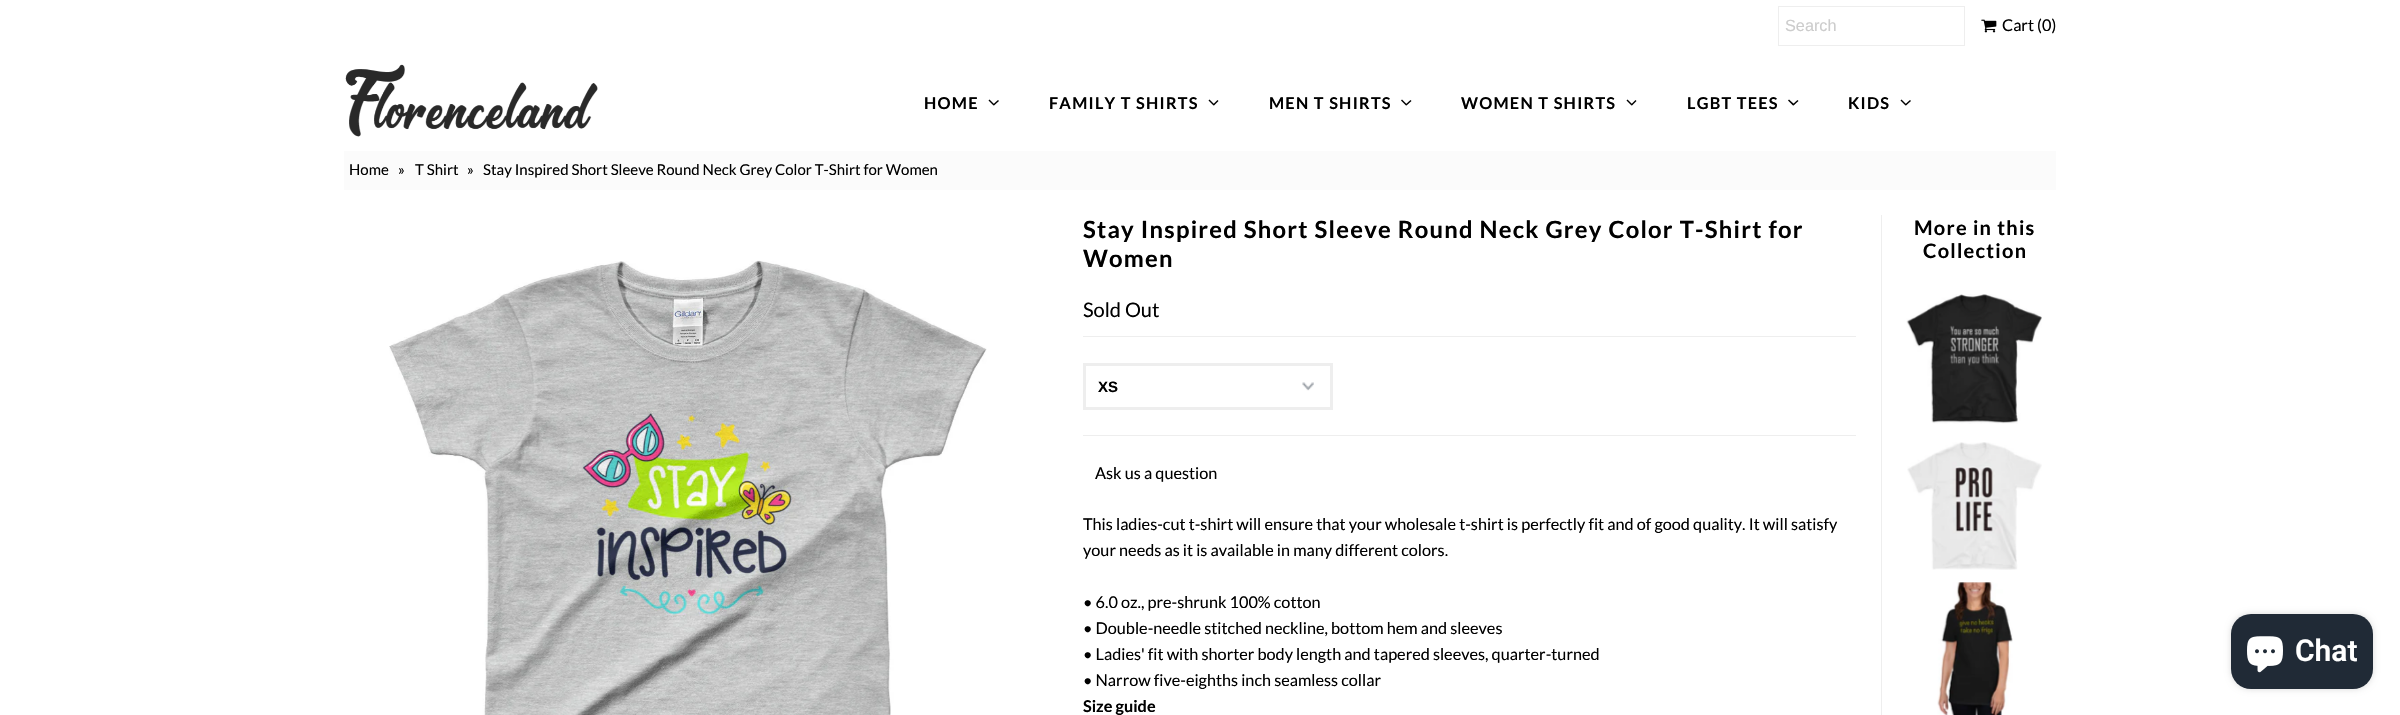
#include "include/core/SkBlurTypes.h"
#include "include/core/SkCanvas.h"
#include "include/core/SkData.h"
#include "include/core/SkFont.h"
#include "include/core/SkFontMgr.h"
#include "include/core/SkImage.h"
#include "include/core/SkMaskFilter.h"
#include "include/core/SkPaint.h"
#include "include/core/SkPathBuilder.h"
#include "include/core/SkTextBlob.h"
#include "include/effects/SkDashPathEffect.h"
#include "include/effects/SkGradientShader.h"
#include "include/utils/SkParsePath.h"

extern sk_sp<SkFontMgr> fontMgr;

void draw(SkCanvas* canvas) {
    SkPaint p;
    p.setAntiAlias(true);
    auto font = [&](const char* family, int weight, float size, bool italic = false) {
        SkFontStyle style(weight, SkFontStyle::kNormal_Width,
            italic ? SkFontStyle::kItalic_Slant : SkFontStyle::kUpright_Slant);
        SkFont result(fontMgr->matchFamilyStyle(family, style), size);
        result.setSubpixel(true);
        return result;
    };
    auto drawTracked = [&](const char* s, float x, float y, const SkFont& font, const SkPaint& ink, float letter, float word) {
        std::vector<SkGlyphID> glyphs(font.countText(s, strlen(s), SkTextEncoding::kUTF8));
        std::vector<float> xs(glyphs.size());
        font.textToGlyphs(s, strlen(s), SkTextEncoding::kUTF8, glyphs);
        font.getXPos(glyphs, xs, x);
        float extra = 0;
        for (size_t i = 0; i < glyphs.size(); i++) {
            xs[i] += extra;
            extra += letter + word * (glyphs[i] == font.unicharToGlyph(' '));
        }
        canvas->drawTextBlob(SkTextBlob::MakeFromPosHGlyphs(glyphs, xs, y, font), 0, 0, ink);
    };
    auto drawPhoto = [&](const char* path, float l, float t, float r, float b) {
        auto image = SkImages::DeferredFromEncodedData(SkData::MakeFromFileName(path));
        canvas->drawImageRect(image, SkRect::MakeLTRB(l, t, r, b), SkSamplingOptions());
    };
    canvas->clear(0xFFFFFFFF);
    p.setStyle(SkPaint::kStroke_Style);
    p.setStrokeWidth(1);
    p.setColor(0xFFEEEEEE);
    canvas->drawRect(SkRect::MakeLTRB(1778.5f, 6.5f, 1964.5f, 45.5f), p);
    auto font1 = font("Liberation Sans", 400, 16.25f);
    p.setStyle(SkPaint::kFill_Style);
    p.setColor(0xFFCCCCCC);
    canvas->drawString("Search", 1785, 31, font1, p);
    drawPhoto("media/1.png", 1981, 19, 1997, 33);
    auto font2 = font("Lato", 400, 16.25f);
    p.setColor(0xFF000000);
    canvas->drawString("Cart (0)", 2002, 31, font2, p);
    drawPhoto("media/2.png", 345, 64, 598, 137);
    auto font3 = font("Lato", 700, 16.25f);
    drawTracked("HOME", 924, 109, font3, p, 1.25f, 0);
    canvas->drawPath(SkPathBuilder().moveTo(998, 100).lineTo(999, 101).lineTo(994, 105.5f).lineTo(993, 104.5f).close().detach(), p);
    canvas->drawPath(SkPathBuilder().moveTo(989.5f, 99.5f).lineTo(994.5f, 104.5f).lineTo(993.5f, 105.5f).lineTo(988.5f, 100.5f).close().detach(), p);
    drawTracked("FAMILY T SHIRTS", 1049, 109, font3, p, 1.25f, 0);
    canvas->drawPath(SkPathBuilder().moveTo(1217.5f, 100).lineTo(1218.5f, 101).lineTo(1214, 105.5f).lineTo(1213, 104.5f).close().detach(), p);
    canvas->drawPath(SkPathBuilder().moveTo(1209.5f, 99.5f).lineTo(1214.5f, 104.5f).lineTo(1213.5f, 105.5f).lineTo(1208.5f, 100.5f).close().detach(), p);
    drawTracked("MEN T SHIRTS", 1269, 109, font3, p, 1.25f, 0);
    canvas->drawPath(SkPathBuilder().moveTo(1410.5f, 100).lineTo(1411.5f, 101).lineTo(1406.5f, 105.5f).lineTo(1405.5f, 104.5f).close().detach(), p);
    canvas->drawPath(SkPathBuilder().moveTo(1402, 99.5f).lineTo(1407, 104.5f).lineTo(1406, 105.5f).lineTo(1401, 100.5f).close().detach(), p);
    drawTracked("WOMEN T SHIRTS", 1461, 109, font3, p, 1.25f, 0);
    canvas->drawPath(SkPathBuilder().moveTo(1635.5f, 100).lineTo(1636.5f, 101).lineTo(1632, 105.5f).lineTo(1631, 104.5f).close().detach(), p);
    canvas->drawPath(SkPathBuilder().moveTo(1627.5f, 99.5f).lineTo(1632.5f, 104.5f).lineTo(1631.5f, 105.5f).lineTo(1626.5f, 100.5f).close().detach(), p);
    drawTracked("LGBT TEES", 1687, 109, font3, p, 1.25f, 0);
    canvas->drawPath(SkPathBuilder().moveTo(1797.5f, 100).lineTo(1798.5f, 101).lineTo(1793.5f, 105.5f).lineTo(1792.5f, 104.5f).close().detach(), p);
    canvas->drawPath(SkPathBuilder().moveTo(1789, 99.5f).lineTo(1794.5f, 104.5f).lineTo(1793, 105.5f).lineTo(1788, 100.5f).close().detach(), p);
    drawTracked("KIDS", 1848, 109, font3, p, 1.25f, 0);
    canvas->drawPath(SkPathBuilder().moveTo(1910, 100).lineTo(1911, 101).lineTo(1906, 105.5f).lineTo(1905, 104.5f).close().detach(), p);
    canvas->drawPath(SkPathBuilder().moveTo(1901.5f, 99.5f).lineTo(1906.5f, 104.5f).lineTo(1905.5f, 105.5f).lineTo(1900.5f, 100.5f).close().detach(), p);
    p.setColor(0xFFFBFBFB);
    canvas->drawRect(SkRect::MakeLTRB(344, 151, 2056, 190), p);
    auto font4 = font("Lato", 400, 15);
    p.setColor(0xFF000000);
    {
        const struct { const char* s; float x, y; } items[] = {
            {"Home", 349, 175},
            {"»", 398, 175},
            {"T Shirt", 415, 175},
            {"»", 467, 175},
            {"Stay Inspired Short Sleeve Round Neck Grey Color T-Shirt for Women", 483, 175},
        };
        for (auto [s, x, y] : items) {
            canvas->drawString(s, x, y, font4, p);
        }
    }
    drawPhoto("media/3.png", 389, 260, 987, 715);
    p.setColor(0xFFEEEEEE);
    canvas->drawRect(SkRect::MakeLTRB(1881, 215, 1882, 715), p);
    auto font5 = font("Lato", 700, 23.75f);
    p.setColor(0xFF000000);
    drawTracked("Stay Inspired Short Sleeve Round Neck Grey Color T-Shirt for", 1083, 238, font5, p, 1.25f, 0);
    drawTracked("Women", 1083, 267, font5, p, 1.25f, 0);
    auto font6 = font("Lato", 400, 20);
    canvas->drawString("Sold Out", 1083, 317, font6, p);
    p.setColor(0xFFEEEEEE);
    canvas->drawRect(SkRect::MakeLTRB(1083, 336, 1856, 337), p);
    canvas->drawRect(SkRect::MakeLTRB(1083, 435, 1856, 436), p);
    drawPhoto("media/4.png", 1302, 382, 1314, 391);
    p.setStyle(SkPaint::kStroke_Style);
    p.setStrokeWidth(3);
    canvas->drawRect(SkRect::MakeLTRB(1084.5f, 364.5f, 1331.5f, 408.5f), p);
    auto font7 = font("Liberation Sans", 700, 15);
    p.setStyle(SkPaint::kFill_Style);
    p.setColor(0xFF000000);
    canvas->drawString("XS", 1098, 392, font7, p);
    {
        const struct { const char* s; float x, y; } items[] = {
            {"Ask us a question", 1095, 479},
            {"This ladies-cut t-shirt will ensure that your wholesale t-shirt is perfectly fit and of good quality. It will satisfy", 1083, 530},
            {"your needs as it is available in many different colors.", 1083, 556},
            {"• 6.0 oz., pre-shrunk 100% cotton", 1083, 608},
            {"• Double-needle stitched neckline, bottom hem and sleeves", 1083, 634},
            {"• Ladies' fit with shorter body length and tapered sleeves, quarter-turned", 1083, 660},
            {"• Narrow five-eighths inch seamless collar", 1083, 686},
        };
        for (auto [s, x, y] : items) {
            canvas->drawString(s, x, y, font2, p);
        }
    }
    canvas->drawString("Size guide", 1083, 712, font3, p);
    auto font8 = font("Lato", 700, 20);
    drawTracked("More in this", 1914, 235, font8, p, 1.25f, 0);
    drawTracked("Collection", 1923, 258, font8, p, 1.25f, 0);
    drawPhoto("media/5.png", 1906, 294, 2042, 424);
    drawPhoto("media/6.png", 1907, 442, 2042, 570);
    drawPhoto("media/7.png", 1937, 582, 2013, 715);
    p.setColor(0x26000000);
    p.setMaskFilter(SkMaskFilter::MakeBlur(kNormal_SkBlurStyle, 3));
    canvas->drawRoundRect(SkRect::MakeLTRB(2231, 614, 2373, 689), 20, 20, p);
    p.setMaskFilter(nullptr);
    p.setColor(0xFF202A36);
    canvas->drawRoundRect(SkRect::MakeLTRB(2231, 614, 2373, 689), 20, 20, p);
    drawPhoto("media/8.png", 2247, 636, 2283, 673);
    auto font9 = font("Roboto", 600, 30);
    p.setColor(0xFFFFFFFF);
    canvas->drawString("Chat", 2295, 661, font9, p);
}
